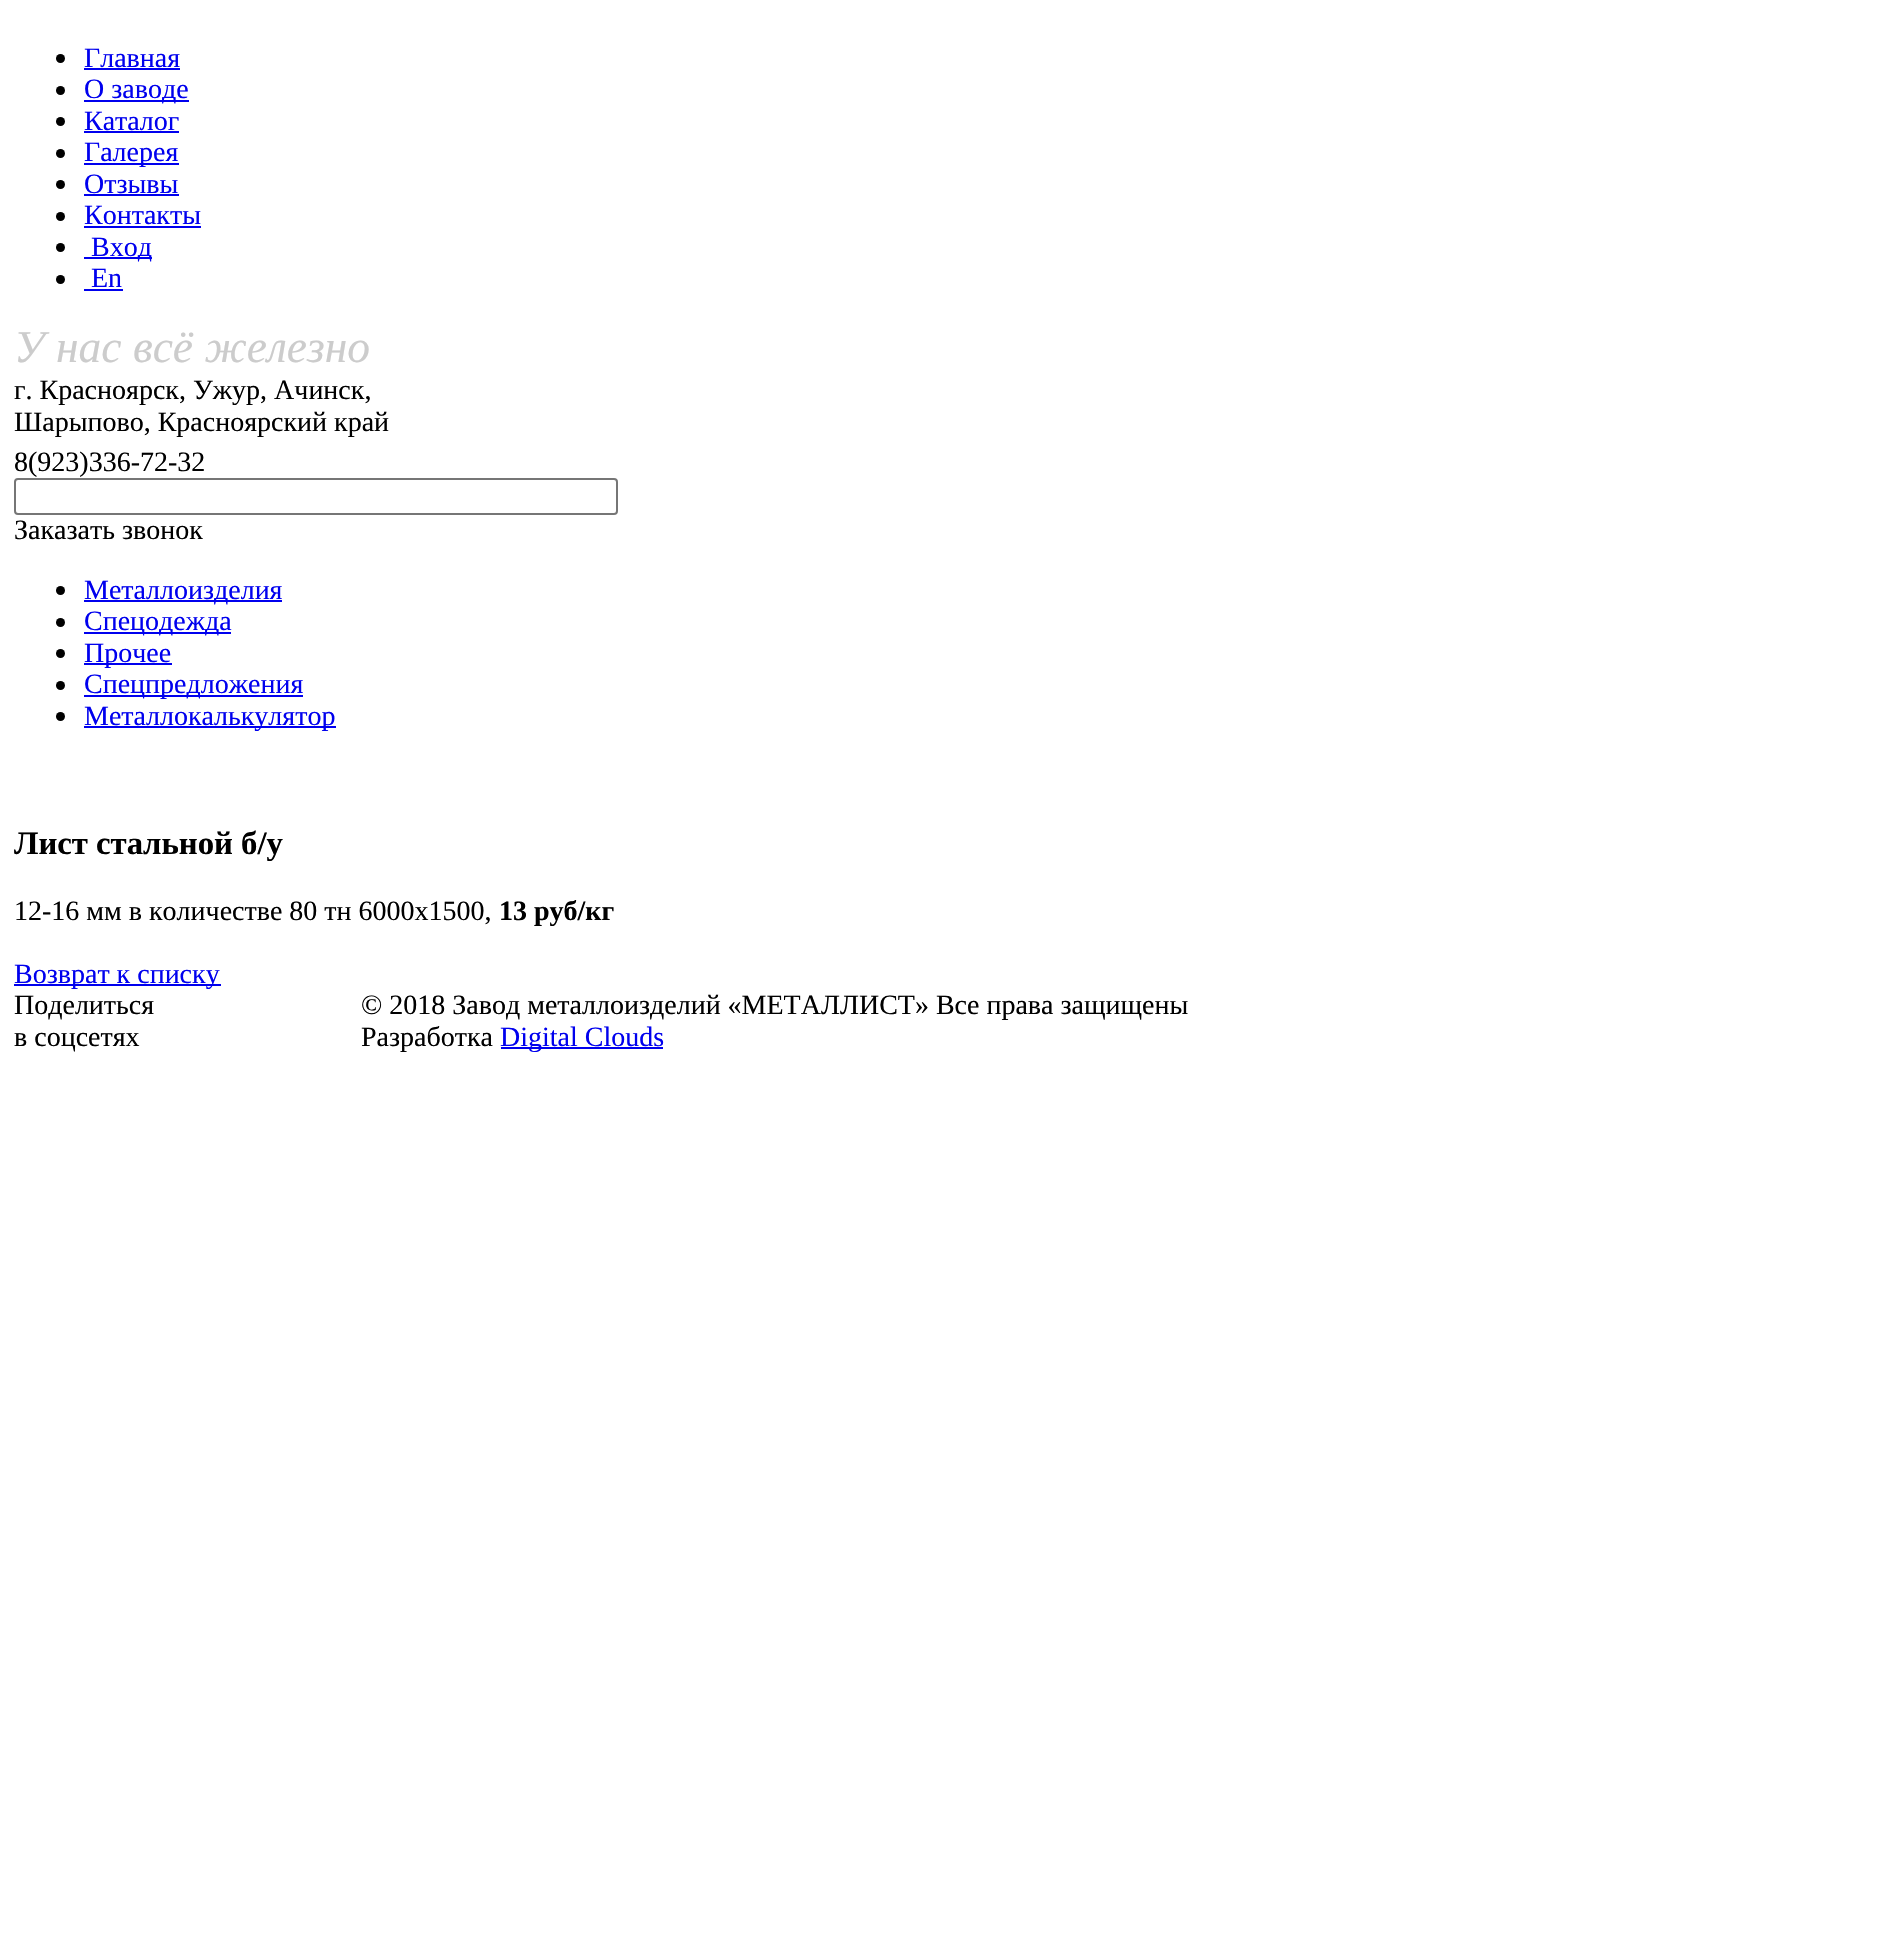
#include "include/core/SkBlurTypes.h"
#include "include/core/SkCanvas.h"
#include "include/core/SkData.h"
#include "include/core/SkFont.h"
#include "include/core/SkFontMgr.h"
#include "include/core/SkImage.h"
#include "include/core/SkMaskFilter.h"
#include "include/core/SkPaint.h"
#include "include/core/SkPathBuilder.h"
#include "include/core/SkTextBlob.h"
#include "include/effects/SkDashPathEffect.h"
#include "include/effects/SkGradientShader.h"
#include "include/utils/SkParsePath.h"

extern sk_sp<SkFontMgr> fontMgr;

void draw(SkCanvas* canvas) {
    SkPaint p;
    p.setAntiAlias(true);
    auto font = [&](const char* family, int weight, float size, bool italic = false) {
        SkFontStyle style(weight, SkFontStyle::kNormal_Width,
            italic ? SkFontStyle::kItalic_Slant : SkFontStyle::kUpright_Slant);
        SkFont result(fontMgr->matchFamilyStyle(family, style), size);
        result.setSubpixel(true);
        return result;
    };
    canvas->clear(0xFFFFFFFF);
    p.setColor(0xFF000000);
    canvas->drawCircle(60.5f, 58.5f, 4.5f, p);
    auto font1 = font("Liberation Serif", 400, 28);
    p.setColor(0xFF0000EE);
    canvas->drawString("Главная", 84, 67, font1, p);
    canvas->drawRect(SkRect::MakeLTRB(84, 68, 180, 70), p);
    p.setColor(0xFF000000);
    canvas->drawCircle(60.5f, 90.5f, 4.5f, p);
    p.setColor(0xFF0000EE);
    canvas->drawRect(SkRect::MakeLTRB(84, 100, 189, 102), p);
    canvas->drawString("О заводе", 84, 98, font1, p);
    p.setColor(0xFF000000);
    canvas->drawCircle(60.5f, 121.5f, 4.5f, p);
    p.setColor(0xFF0000EE);
    canvas->drawString("Каталог", 84, 130, font1, p);
    canvas->drawRect(SkRect::MakeLTRB(84, 131, 179, 133), p);
    p.setColor(0xFF000000);
    canvas->drawCircle(60.5f, 153.5f, 4.5f, p);
    p.setColor(0xFF0000EE);
    canvas->drawRect(SkRect::MakeLTRB(84, 163, 179, 165), p);
    canvas->drawString("Галерея", 84, 161, font1, p);
    p.setColor(0xFF000000);
    canvas->drawCircle(60.5f, 184.5f, 4.5f, p);
    p.setColor(0xFF0000EE);
    canvas->drawString("Отзывы", 84, 193, font1, p);
    canvas->drawRect(SkRect::MakeLTRB(84, 194, 179, 196), p);
    p.setColor(0xFF000000);
    canvas->drawCircle(60.5f, 216.5f, 4.5f, p);
    p.setColor(0xFF0000EE);
    canvas->drawString("Контакты", 84, 224, font1, p);
    canvas->drawRect(SkRect::MakeLTRB(84, 226, 201, 228), p);
    p.setColor(0xFF000000);
    canvas->drawCircle(60.5f, 247.5f, 4.5f, p);
    p.setColor(0xFF0000EE);
    canvas->drawRect(SkRect::MakeLTRB(84, 257, 152, 259), p);
    canvas->drawString("Вход", 91, 256, font1, p);
    p.setColor(0xFF000000);
    canvas->drawCircle(60.5f, 279.5f, 4.5f, p);
    p.setColor(0xFF0000EE);
    canvas->drawString("En", 91, 287, font1, p);
    canvas->drawRect(SkRect::MakeLTRB(84, 289, 123, 291), p);
    auto font2 = font("Liberation Serif", 400, 45.5f, true);
    p.setColor(0xFFCCCCCC);
    canvas->drawString("У нас всё железно", 14, 362, font2, p);
    p.setColor(0xFF000000);
    {
        const struct { const char* s; float x, y; } items[] = {
            {"г. Красноярск, Ужур, Ачинск,", 14, 399},
            {"Шарыпово, Красноярский край", 14, 431},
            {"8(923)336-72-32", 14, 471},
        };
        for (auto [s, x, y] : items) {
            canvas->drawString(s, x, y, font1, p);
        }
    }
    p.setStyle(SkPaint::kStroke_Style);
    p.setStrokeWidth(2);
    p.setColor(0xFF767676);
    canvas->drawRoundRect(SkRect::MakeLTRB(15, 479, 617, 514), 3, 3, p);
    p.setStyle(SkPaint::kFill_Style);
    p.setColor(0xFF000000);
    canvas->drawString("Заказать звонок", 14, 539, font1, p);
    canvas->drawCircle(60.5f, 590.5f, 4.5f, p);
    p.setColor(0xFF0000EE);
    canvas->drawRect(SkRect::MakeLTRB(84, 600, 282, 602), p);
    canvas->drawString("Металлоизделия", 84, 599, font1, p);
    p.setColor(0xFF000000);
    canvas->drawCircle(60.5f, 622.5f, 4.5f, p);
    p.setColor(0xFF0000EE);
    canvas->drawRect(SkRect::MakeLTRB(84, 632, 231, 634), p);
    canvas->drawString("Спецодежда", 84, 630, font1, p);
    p.setColor(0xFF000000);
    canvas->drawCircle(60.5f, 653.5f, 4.5f, p);
    p.setColor(0xFF0000EE);
    canvas->drawRect(SkRect::MakeLTRB(84, 663, 172, 665), p);
    canvas->drawString("Прочее", 84, 662, font1, p);
    p.setColor(0xFF000000);
    canvas->drawCircle(60.5f, 685.5f, 4.5f, p);
    p.setColor(0xFF0000EE);
    canvas->drawRect(SkRect::MakeLTRB(84, 695, 303, 697), p);
    canvas->drawString("Спецпредложения", 84, 693, font1, p);
    p.setColor(0xFF000000);
    canvas->drawCircle(60.5f, 716.5f, 4.5f, p);
    p.setColor(0xFF0000EE);
    canvas->drawRect(SkRect::MakeLTRB(84, 726, 336, 728), p);
    canvas->drawString("Металлокалькулятор", 84, 725, font1, p);
    auto font3 = font("Liberation Serif", 700, 32.75f);
    p.setColor(0xFF000000);
    canvas->drawString("Лист стальной б/у", 14, 854, font3, p);
    canvas->drawString("12-16 мм в количестве 80 тн 6000х1500,", 14, 920, font1, p);
    auto font4 = font("Liberation Serif", 700, 28);
    canvas->drawString("13 руб/кг", 499, 920, font4, p);
    p.setColor(0xFF0000EE);
    canvas->drawRect(SkRect::MakeLTRB(14, 984, 221, 986), p);
    canvas->drawString("Возврат к списку", 14, 983, font1, p);
    p.setColor(0xFF000000);
    {
        const struct { const char* s; float x, y; } items[] = {
            {"Поделиться", 14, 1014},
            {"в соцсетях", 14, 1046},
            {"© 2018 Завод металлоизделий «МЕТАЛЛИСТ» Все права защищены", 361, 1014},
            {"Разработка", 361, 1046},
        };
        for (auto [s, x, y] : items) {
            canvas->drawString(s, x, y, font1, p);
        }
    }
    p.setColor(0xFF0000EE);
    canvas->drawRect(SkRect::MakeLTRB(501, 1047, 663, 1049), p);
    canvas->drawString("Digital Clouds", 500, 1046, font1, p);
}
